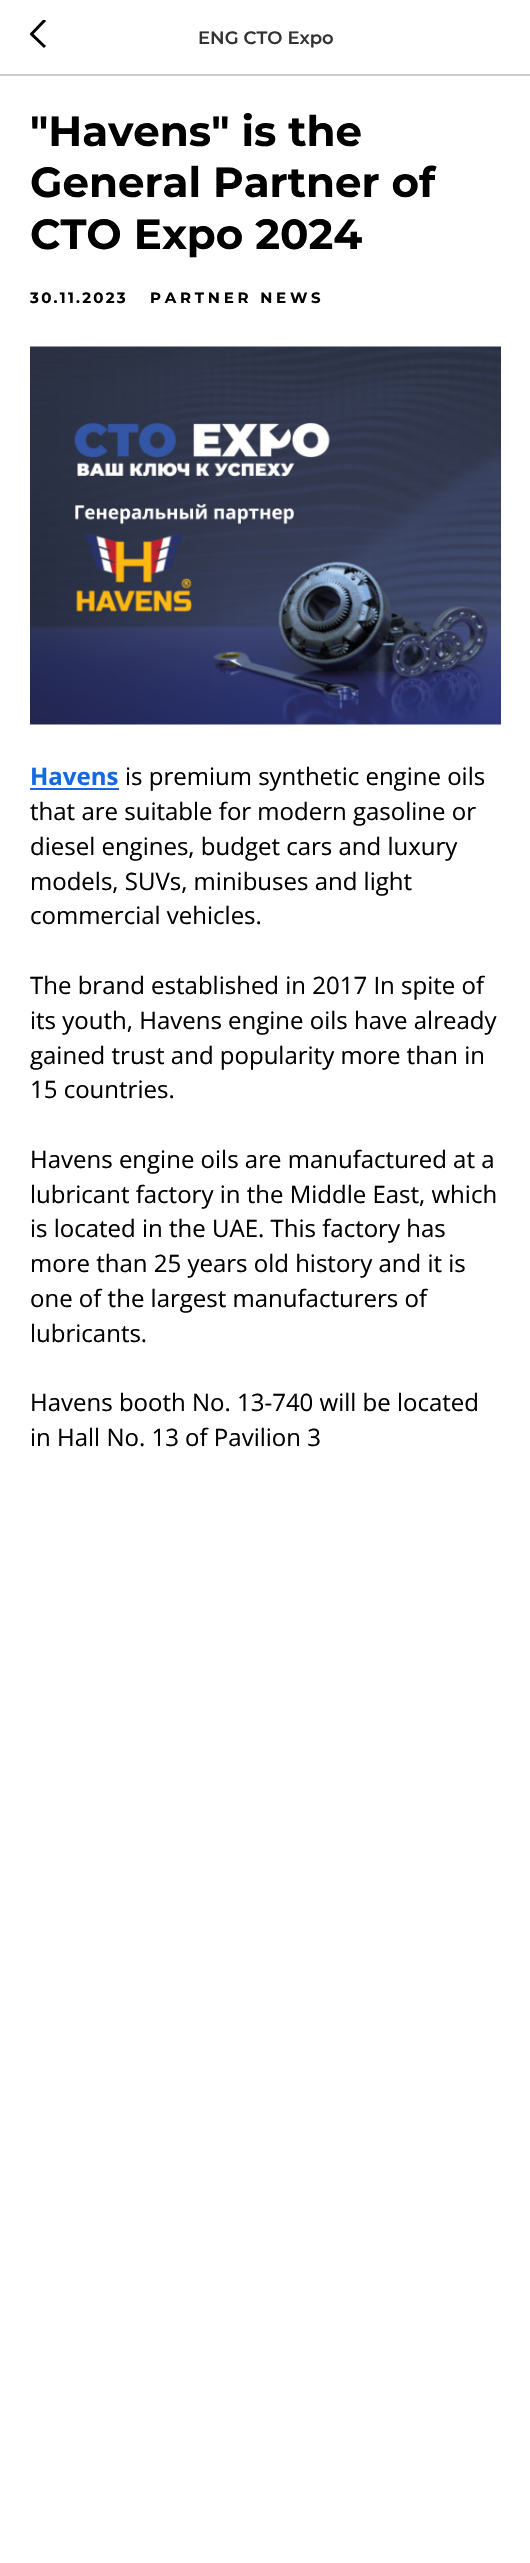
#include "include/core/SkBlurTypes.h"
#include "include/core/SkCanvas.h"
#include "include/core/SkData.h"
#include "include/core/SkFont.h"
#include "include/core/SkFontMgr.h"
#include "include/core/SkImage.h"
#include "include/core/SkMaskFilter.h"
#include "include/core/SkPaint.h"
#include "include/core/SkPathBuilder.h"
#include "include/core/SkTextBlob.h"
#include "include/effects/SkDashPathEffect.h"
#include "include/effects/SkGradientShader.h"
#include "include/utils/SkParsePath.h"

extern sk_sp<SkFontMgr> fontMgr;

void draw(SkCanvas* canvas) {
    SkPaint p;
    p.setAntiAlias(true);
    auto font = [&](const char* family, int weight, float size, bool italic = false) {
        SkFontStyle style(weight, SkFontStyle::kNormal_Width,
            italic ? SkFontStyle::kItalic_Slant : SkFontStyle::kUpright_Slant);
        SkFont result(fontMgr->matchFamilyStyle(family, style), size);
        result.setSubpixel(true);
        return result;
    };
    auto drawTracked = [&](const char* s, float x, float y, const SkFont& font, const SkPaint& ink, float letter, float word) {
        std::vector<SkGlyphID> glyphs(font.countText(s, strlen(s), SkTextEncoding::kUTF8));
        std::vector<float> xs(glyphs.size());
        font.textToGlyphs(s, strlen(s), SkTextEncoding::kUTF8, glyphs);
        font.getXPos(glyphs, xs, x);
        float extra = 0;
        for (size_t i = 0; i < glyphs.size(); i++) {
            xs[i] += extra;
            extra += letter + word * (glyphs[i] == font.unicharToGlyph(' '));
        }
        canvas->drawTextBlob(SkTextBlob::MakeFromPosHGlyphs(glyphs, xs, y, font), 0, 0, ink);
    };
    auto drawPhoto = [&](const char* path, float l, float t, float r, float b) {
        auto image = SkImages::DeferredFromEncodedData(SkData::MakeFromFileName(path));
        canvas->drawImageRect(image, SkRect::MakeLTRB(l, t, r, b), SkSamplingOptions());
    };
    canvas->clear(0xFFFFFFFF);
    p.setColor(0xFFCCCCCC);
    canvas->drawRect(SkRect::MakeLTRB(0, 74, 530, 76), p);
    canvas->save();
    canvas->clipRect(SkRect::MakeLTRB(30, 20, 47, 50));
    p.setStyle(SkPaint::kStroke_Style);
    p.setStrokeWidth(3);
    p.setColor(0xFF000000);
    canvas->drawPath(SkPathBuilder().moveTo(45, 47).lineTo(31.5f, 34).lineTo(45, 20).detach(), p);
    canvas->restore();
    auto font1 = font("Montserrat", 600, 18);
    p.setStyle(SkPaint::kFill_Style);
    p.setColor(0xFF333333);
    canvas->drawString("ENG CTO Expo", 198, 44, font1, p);
    auto font2 = font("Montserrat", 700, 42);
    p.setColor(0xFF000000);
    {
        const struct { const char* s; float x, y; } items[] = {
            {"\"Havens\" is the", 30, 146},
            {"General Partner of", 30, 197},
            {"CTO Expo 2024", 30, 249},
        };
        for (auto [s, x, y] : items) {
            canvas->drawString(s, x, y, font2, p);
        }
    }
    auto font3 = font("Montserrat", 700, 15);
    drawTracked("30.11.2023", 30, 303, font3, p, 2.25f, 0);
    drawTracked("PARTNER NEWS", 150, 303, font3, p, 3.75f, 0);
    drawPhoto("media/1.png", 30, 346, 501, 725);
    auto font4 = font("Open Sans", 700, 24);
    p.setColor(0xFF1468E2);
    canvas->drawString("Havens", 30, 785, font4, p);
    canvas->drawRect(SkRect::MakeLTRB(30, 788, 119, 790), p);
    auto font5 = font("Open Sans", 400, 24);
    p.setColor(0xFF000000);
    {
        const struct { const char* s; float x, y; } items[] = {
            {"is premium synthetic engine oils", 125, 785},
            {"that are suitable for modern gasoline or", 30, 820},
            {"diesel engines, budget cars and luxury", 30, 855},
            {"models, SUVs, minibuses and light", 30, 890},
            {"commercial vehicles.", 30, 924},
            {"The brand established in 2017 In spite of", 30, 994},
            {"its youth, Havens engine oils have already", 30, 1029},
            {"gained trust and popularity more than in", 30, 1064},
            {"15 countries.", 30, 1098},
            {"Havens engine oils are manufactured at a", 30, 1168},
            {"lubricant factory in the Middle East, which", 30, 1203},
            {"is located in the UAE. This factory has", 30, 1237},
            {"more than 25 years old history and it is", 30, 1272},
            {"one of the largest manufacturers of", 30, 1307},
            {"lubricants.", 30, 1342},
            {"Havens booth No. 13-740 will be located", 30, 1411},
            {"in Hall No. 13 of Pavilion 3", 30, 1446},
        };
        for (auto [s, x, y] : items) {
            canvas->drawString(s, x, y, font5, p);
        }
    }
}
